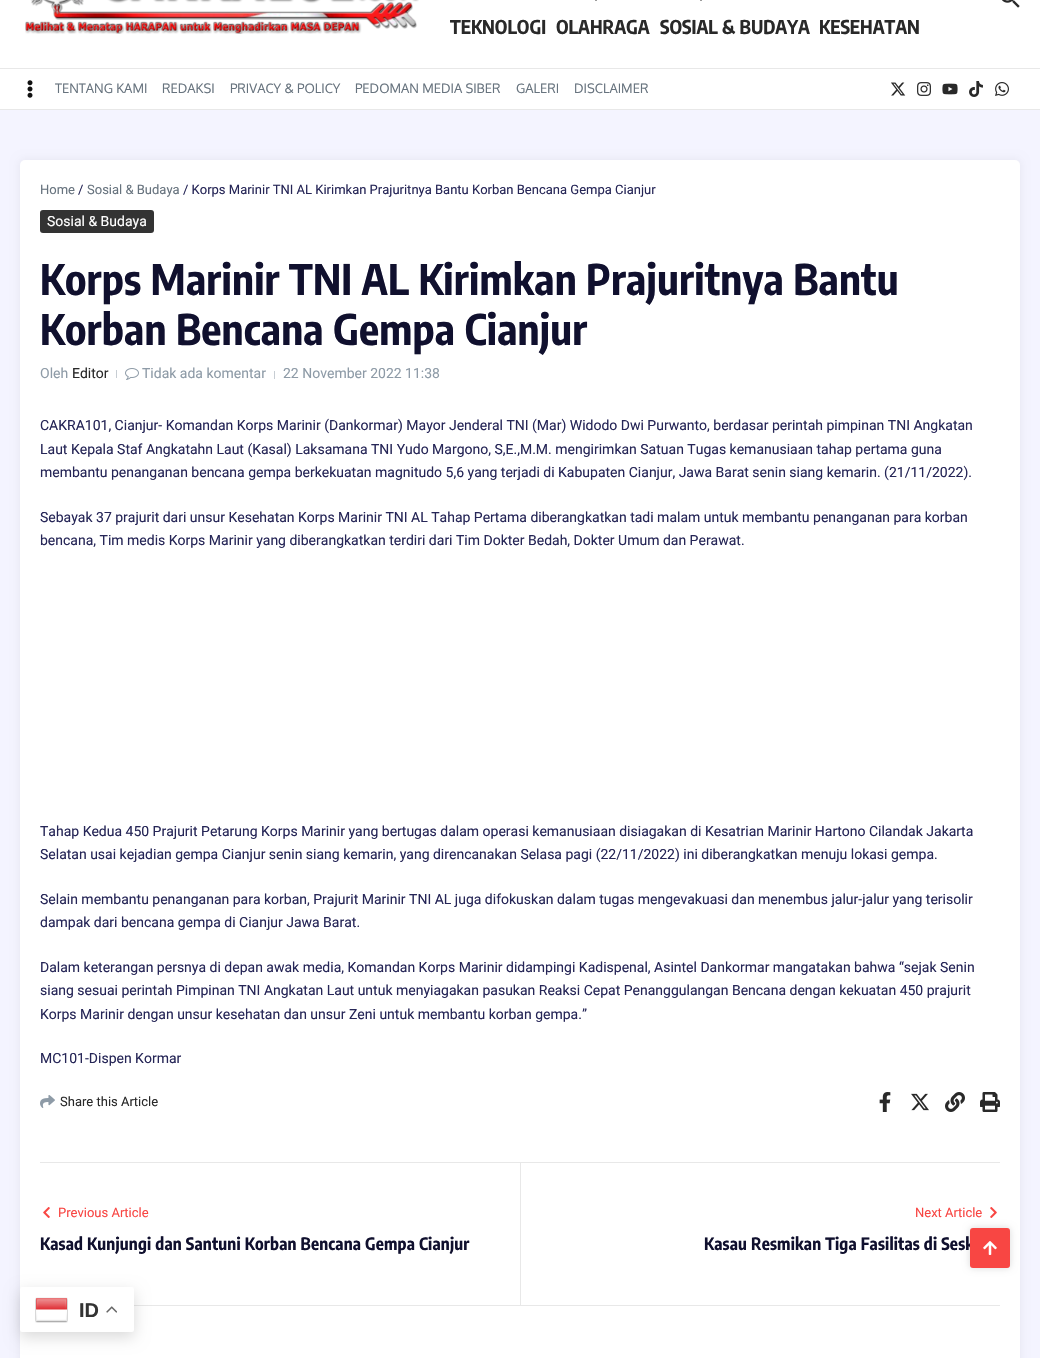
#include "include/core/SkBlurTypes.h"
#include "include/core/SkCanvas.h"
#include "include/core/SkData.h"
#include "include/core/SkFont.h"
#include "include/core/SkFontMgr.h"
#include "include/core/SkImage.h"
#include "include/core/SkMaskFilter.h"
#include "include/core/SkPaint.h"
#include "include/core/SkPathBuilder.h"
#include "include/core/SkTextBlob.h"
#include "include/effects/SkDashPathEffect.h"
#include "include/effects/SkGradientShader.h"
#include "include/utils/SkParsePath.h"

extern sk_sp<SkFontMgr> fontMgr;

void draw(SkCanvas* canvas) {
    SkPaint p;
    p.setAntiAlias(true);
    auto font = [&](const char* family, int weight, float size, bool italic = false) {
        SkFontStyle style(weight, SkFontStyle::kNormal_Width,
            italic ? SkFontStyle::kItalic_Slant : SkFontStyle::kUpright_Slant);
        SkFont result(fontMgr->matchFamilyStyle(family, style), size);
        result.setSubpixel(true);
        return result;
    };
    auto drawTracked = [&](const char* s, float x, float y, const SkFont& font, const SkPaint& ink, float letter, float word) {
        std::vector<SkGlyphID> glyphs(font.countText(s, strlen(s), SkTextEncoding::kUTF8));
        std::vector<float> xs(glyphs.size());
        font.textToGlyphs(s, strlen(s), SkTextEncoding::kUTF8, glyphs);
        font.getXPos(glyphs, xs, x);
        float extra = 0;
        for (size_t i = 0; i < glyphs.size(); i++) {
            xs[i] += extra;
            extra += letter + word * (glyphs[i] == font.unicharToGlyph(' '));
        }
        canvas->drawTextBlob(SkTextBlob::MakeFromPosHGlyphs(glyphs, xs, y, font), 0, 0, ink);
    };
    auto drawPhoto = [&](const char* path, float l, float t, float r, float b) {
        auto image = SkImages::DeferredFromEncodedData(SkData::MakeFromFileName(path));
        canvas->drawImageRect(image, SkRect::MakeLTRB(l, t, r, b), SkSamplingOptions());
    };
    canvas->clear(0xFFF4F4FF);
    p.setColor(0xFFFFFFFF);
    canvas->drawRect(SkRect::MakeLTRB(0, 0, 1040, 68), p);
    p.setColor(0xFFE8E8E8);
    canvas->drawRect(SkRect::MakeLTRB(0, 68, 1040, 69), p);
    drawPhoto("media/1.png", 1002, 0, 1020, 8);
    drawPhoto("media/2.png", 25, 0, 419, 34);
    p.setColor(0xFF9C9C9C);
    canvas->drawRect(SkRect::MakeLTRB(595, 0, 597, 1), p);
    canvas->drawRect(SkRect::MakeLTRB(700, 0, 702, 1), p);
    auto font1 = font("Encode Sans Condensed", 700, 19);
    p.setColor(0xFF292929);
    {
        const struct { const char* s; float x, y; } items[] = {
            {"TEKNOLOGI", 450, 34},
            {"OLAHRAGA", 556, 34},
            {"SOSIAL & BUDAYA", 660, 34},
            {"KESEHATAN", 819, 34},
        };
        for (auto [s, x, y] : items) {
            canvas->drawString(s, x, y, font1, p);
        }
    }
    p.setColor(0xFFFFFFFF);
    canvas->drawRect(SkRect::MakeLTRB(0, 69, 1040, 109), p);
    p.setColor(0xFFE8E8E8);
    canvas->drawRect(SkRect::MakeLTRB(0, 109, 1040, 110), p);
    drawPhoto("media/3.png", 27, 80, 33, 98);
    auto font2 = font("Oxygen", 400, 13);
    p.setColor(0xFF67737E);
    {
        const struct { const char* s; float x, y; } items[] = {
            {"TENTANG KAMI", 55, 93},
            {"REDAKSI", 162, 93},
            {"PRIVACY & POLICY", 230, 93},
            {"PEDOMAN MEDIA SIBER", 355, 93},
            {"GALERI", 516, 93},
            {"DISCLAIMER", 574, 93},
        };
        for (auto [s, x, y] : items) {
            canvas->drawString(s, x, y, font2, p);
        }
    }
    drawPhoto("media/4.png", 891, 82, 906, 96);
    drawPhoto("media/5.png", 917, 82, 931, 96);
    drawPhoto("media/6.png", 942, 83, 958, 95);
    drawPhoto("media/7.png", 969, 81, 983, 97);
    drawPhoto("media/8.png", 995, 82, 1009, 96);
    p.setColor(0x0D000000);
    p.setMaskFilter(SkMaskFilter::MakeBlur(kNormal_SkBlurStyle, 4));
    canvas->drawRoundRect(SkRect::MakeLTRB(19, 159, 1021, 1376), 6, 6, p);
    p.setMaskFilter(nullptr);
    p.setColor(0xFFFFFFFF);
    canvas->drawRoundRect(SkRect::MakeLTRB(20, 160, 1020, 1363), 5, 5, p);
    auto font3 = font("Roboto", 400, 13);
    p.setColor(0xFF67737E);
    canvas->drawString("Home", 40, 194, font3, p);
    p.setColor(0xFF262657);
    canvas->drawString("/", 78, 194, font3, p);
    p.setColor(0xFF67737E);
    canvas->drawString("Sosial & Budaya", 87, 194, font3, p);
    p.setColor(0xFF262657);
    canvas->drawString("/ Korps Marinir TNI AL Kirimkan Prajuritnya Bantu Korban Bencana Gempa Cianjur", 183, 194, font3, p);
    p.setColor(0xFF333333);
    canvas->drawRoundRect(SkRect::MakeLTRB(40, 210, 154, 233), 3, 3, p);
    auto font4 = font("Roboto", 400, 14);
    p.setColor(0xFFFFFFFF);
    canvas->drawString("Sosial & Budaya", 47, 226, font4, p);
    auto font5 = font("Encode Sans Condensed", 700, 42);
    p.setColor(0xFF10102E);
    drawTracked("Korps Marinir TNI AL Kirimkan Prajuritnya Bantu", 40, 295, font5, p, 0.2f, 0);
    drawTracked("Korban Bencana Gempa Cianjur", 40, 345, font5, p, 0.2f, 0);
    p.setColor(0xFF8E9BA7);
    canvas->drawString("Oleh", 40, 378, font4, p);
    p.setColor(0xFF292929);
    canvas->drawString("Editor", 72, 378, font4, p);
    p.setColor(0xFFC7CDD3);
    canvas->drawRect(SkRect::MakeLTRB(116, 370, 117, 378), p);
    drawPhoto("media/9.png", 125, 368, 139, 380);
    p.setColor(0xFF8E9BA7);
    canvas->drawString("Tidak ada komentar", 142, 378, font4, p);
    p.setColor(0xFFC7CDD3);
    canvas->drawRect(SkRect::MakeLTRB(274, 371, 275, 379), p);
    p.setColor(0xFF8E9BA7);
    canvas->drawString("22 November 2022 11:38", 283, 378, font4, p);
    p.setColor(0xFF262657);
    {
        const struct { const char* s; float x, y; } items[] = {
            {"CAKRA101, Cianjur- Komandan Korps Marinir (Dankormar) Mayor Jenderal TNI (Mar) Widodo Dwi Purwanto, berdasar perintah pimpinan TNI Angkatan", 40, 430},
            {"Laut Kepala Staf Angkatahn Laut (Kasal) Laksamana TNI Yudo Margono, S,E.,M.M. mengirimkan Satuan Tugas kemanusiaan tahap pertama guna", 40, 454},
            {"membantu penanganan bencana gempa berkekuatan magnitudo 5,6 yang terjadi di Kabupaten Cianjur, Jawa Barat senin siang kemarin. (21/11/2022).", 40, 477},
            {"Sebayak 37 prajurit dari unsur Kesehatan Korps Marinir TNI AL Tahap Pertama diberangkatkan tadi malam untuk membantu penanganan para korban", 40, 522},
            {"bencana, Tim medis Korps Marinir yang diberangkatkan terdiri dari Tim Dokter Bedah, Dokter Umum dan Perawat.", 40, 545},
            {"Tahap Kedua 450 Prajurit Petarung Korps Marinir yang bertugas dalam operasi kemanusiaan disiagakan di Kesatrian Marinir Hartono Cilandak Jakarta", 40, 836},
            {"Selatan usai kejadian gempa Cianjur senin siang kemarin, yang direncanakan Selasa pagi (22/11/2022) ini diberangkatkan menuju lokasi gempa.", 40, 859},
            {"Selain membantu penanganan para korban, Prajurit Marinir TNI AL juga difokuskan dalam tugas mengevakuasi dan menembus jalur-jalur yang terisolir", 40, 904},
            {"dampak dari bencana gempa di Cianjur Jawa Barat.", 40, 927},
            {"Dalam keterangan persnya di depan awak media, Komandan Korps Marinir didampingi Kadispenal, Asintel Dankormar mangatakan bahwa “sejak Senin", 40, 972},
            {"siang sesuai perintah Pimpinan TNI Angkatan Laut untuk menyiagakan pasukan Reaksi Cepat Penanggulangan Bencana dengan kekuatan 450 prajurit", 40, 995},
            {"Korps Marinir dengan unsur kesehatan dan unsur Zeni untuk membantu korban gempa.”", 40, 1019},
            {"MC101-Dispen Kormar", 40, 1063},
        };
        for (auto [s, x, y] : items) {
            canvas->drawString(s, x, y, font4, p);
        }
    }
    drawPhoto("media/10.png", 40, 1095, 55, 1108);
    p.setColor(0xFF292929);
    canvas->drawString("Share this Article", 60, 1106, font3, p);
    drawPhoto("media/11.png", 879, 1092, 891, 1112);
    drawPhoto("media/12.png", 911, 1093, 929, 1111);
    drawPhoto("media/13.png", 945, 1092, 965, 1112);
    drawPhoto("media/14.png", 980, 1092, 1000, 1112);
    p.setColor(0xFFE8E8E8);
    canvas->drawRect(SkRect::MakeLTRB(40, 1162, 1000, 1163), p);
    canvas->drawRect(SkRect::MakeLTRB(134, 1305, 1000, 1306), p);
    drawPhoto("media/15.png", 43, 1207, 50, 1218);
    p.setColor(0xFFF84643);
    canvas->drawString("Previous Article", 58, 1217, font3, p);
    auto font6 = font("Encode Sans Condensed", 700, 17);
    p.setColor(0xFF10102E);
    drawTracked("Kasad Kunjungi dan Santuni Korban Bencana Gempa Cianjur", 40, 1250, font6, p, 0.2f, 0);
    p.setColor(0xFFE8E8E8);
    canvas->drawRect(SkRect::MakeLTRB(520, 1163, 521, 1305), p);
    p.setColor(0xFFF84643);
    canvas->drawString("Next Article", 915, 1217, font3, p);
    drawPhoto("media/16.png", 990, 1207, 997, 1218);
    p.setColor(0xFF10102E);
    drawTracked("Kasau Resmikan Tiga Fasilitas di Sesk", 704, 1250, font6, p, 0.2f, 0);
    p.setColor(0x26000000);
    p.setMaskFilter(SkMaskFilter::MakeBlur(kNormal_SkBlurStyle, 3.5f));
    canvas->drawRoundRect(SkRect::MakeLTRB(970, 1228, 1010, 1268), 3, 3, p);
    p.setMaskFilter(nullptr);
    p.setColor(0xFFF84643);
    canvas->drawRoundRect(SkRect::MakeLTRB(970, 1228, 1010, 1268), 3, 3, p);
    drawPhoto("media/17.png", 983, 1241, 997, 1255);
    p.setColor(0x26000000);
    p.setMaskFilter(SkMaskFilter::MakeBlur(kNormal_SkBlurStyle, 7.5f));
    canvas->drawRoundRect(SkRect::MakeLTRB(20, 1292, 134, 1337), 2, 2, p);
    p.setMaskFilter(nullptr);
    p.setColor(0xFFFFFFFF);
    canvas->drawRoundRect(SkRect::MakeLTRB(20, 1287, 134, 1332), 2, 2, p);
    drawPhoto("media/18.png", 35, 1297, 68, 1323);
    auto font7 = font("Liberation Sans", 700, 20);
    p.setColor(0xFF333333);
    canvas->drawString("ID", 79, 1317, font7, p);
    drawPhoto("media/19.png", 106, 1306, 117, 1313);
}
